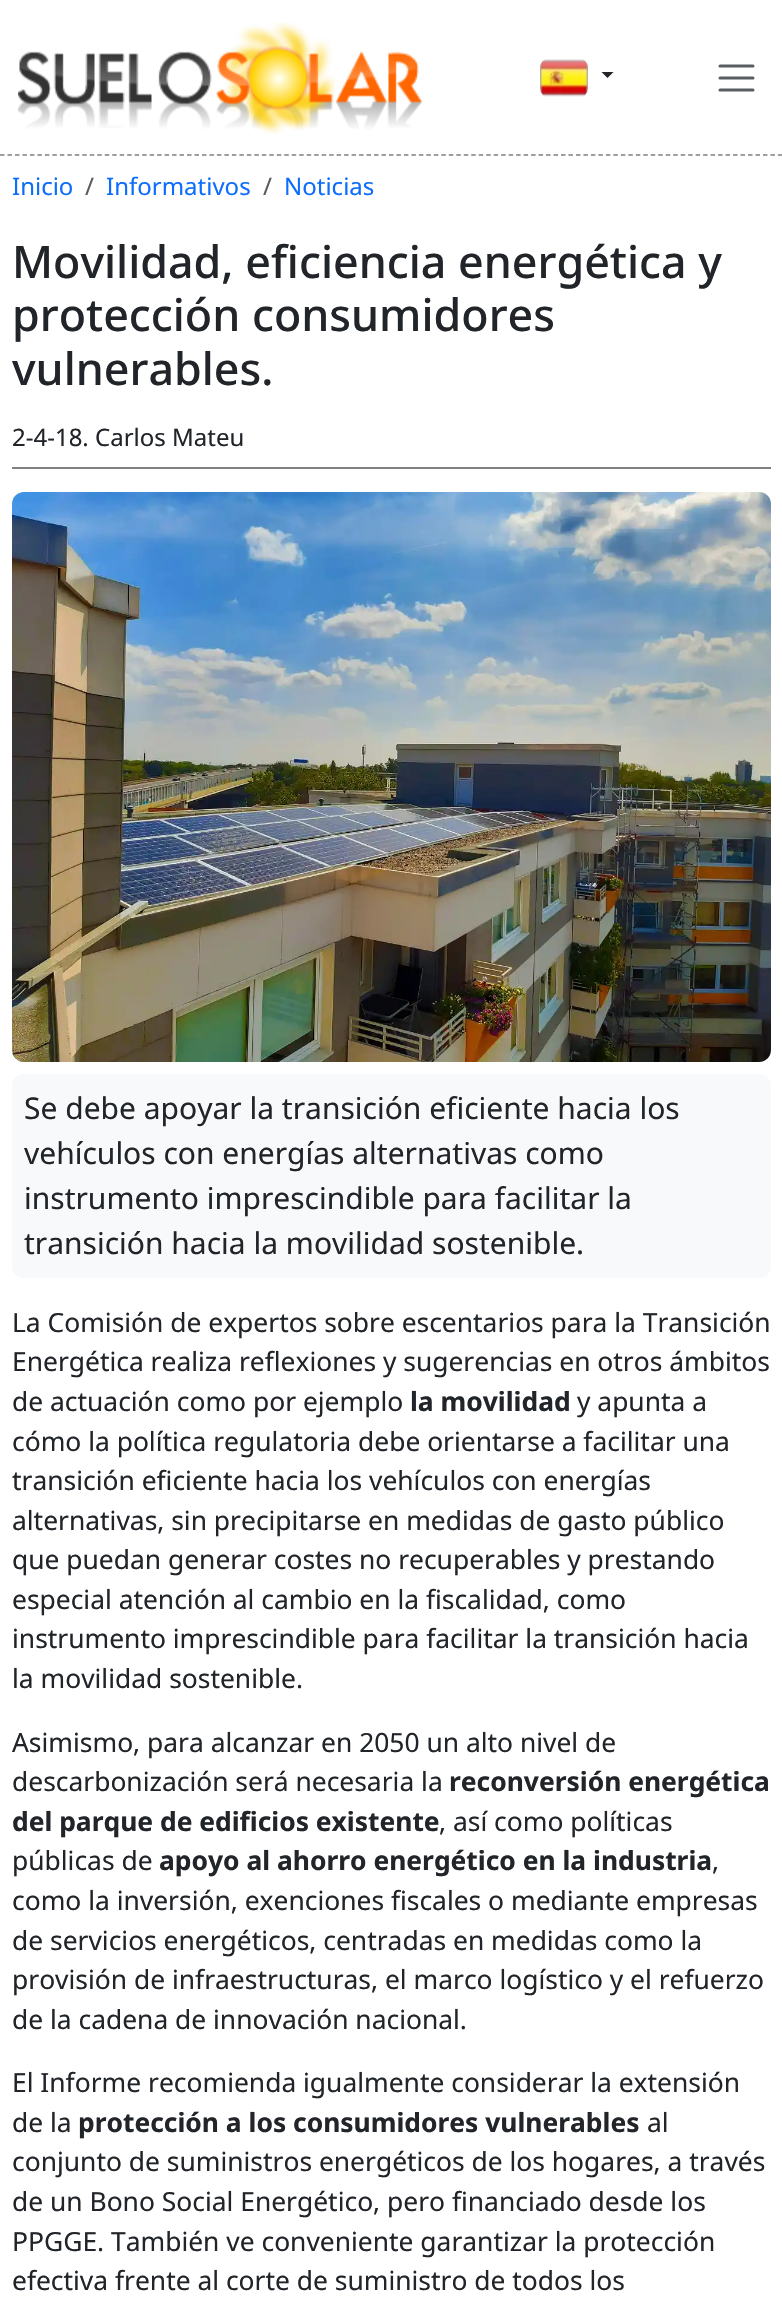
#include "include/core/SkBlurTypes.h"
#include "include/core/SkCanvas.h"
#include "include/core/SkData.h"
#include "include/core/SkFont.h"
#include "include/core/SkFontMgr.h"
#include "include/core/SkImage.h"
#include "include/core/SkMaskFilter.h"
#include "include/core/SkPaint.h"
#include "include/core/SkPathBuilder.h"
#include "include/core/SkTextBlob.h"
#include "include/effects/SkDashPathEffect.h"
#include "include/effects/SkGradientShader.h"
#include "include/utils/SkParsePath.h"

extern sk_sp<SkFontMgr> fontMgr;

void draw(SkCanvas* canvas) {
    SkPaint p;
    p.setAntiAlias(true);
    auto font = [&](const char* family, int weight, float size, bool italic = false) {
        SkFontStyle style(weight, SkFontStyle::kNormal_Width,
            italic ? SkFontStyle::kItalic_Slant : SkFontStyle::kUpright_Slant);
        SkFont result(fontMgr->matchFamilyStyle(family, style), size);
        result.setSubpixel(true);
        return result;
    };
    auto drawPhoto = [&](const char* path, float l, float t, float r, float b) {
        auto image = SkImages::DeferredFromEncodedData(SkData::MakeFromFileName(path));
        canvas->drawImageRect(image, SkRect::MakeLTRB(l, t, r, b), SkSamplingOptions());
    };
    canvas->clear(0xFFFFFFFF);
    p.setStyle(SkPaint::kStroke_Style);
    p.setStrokeWidth(1.5f);
    p.setColor(0xFF808080);
    p.setPathEffect(SkDashPathEffect::Make({{4.5f, 2.98f}}, 0));
    canvas->drawPath(SkPathBuilder().moveTo(0, 155).lineTo(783, 155).detach(), p);
    p.setPathEffect(nullptr);
    drawPhoto("media/1.png", 18, 22, 422, 135);
    drawPhoto("media/2.png", 540, 59, 588, 97);
    p.setStyle(SkPaint::kFill_Style);
    p.setColor(0xFF212529);
    canvas->drawPath(SkPathBuilder().moveTo(601.5f, 72).lineTo(613.5f, 72).lineTo(607.5f, 78).close().detach(), p);
    p.setStyle(SkPaint::kStroke_Style);
    p.setStrokeWidth(3);
    p.setStrokeCap(SkPaint::kRound_Cap);
    p.setColor(0xFF595C5F);
    canvas->drawPath(SkPathBuilder().moveTo(720, 66).lineTo(753, 66).moveTo(720, 78).lineTo(753, 78).moveTo(720, 90).lineTo(753, 90).detach(), p);
    auto font1 = font("Noto Sans", 400, 24);
    p.setStyle(SkPaint::kFill_Style);
    p.setColor(0xFF0D6EFD);
    canvas->drawString("Inicio", 12, 195, font1, p);
    p.setColor(0xFF595C5F);
    canvas->drawString("/", 85, 195, font1, p);
    p.setColor(0xFF0D6EFD);
    canvas->drawString("Informativos", 106, 195, font1, p);
    p.setColor(0xFF595C5F);
    canvas->drawString("/", 263, 195, font1, p);
    p.setColor(0xFF0D6EFD);
    canvas->drawString("Noticias", 284, 195, font1, p);
    auto font2 = font("Noto Sans", 500, 44.75f);
    p.setColor(0xFF212529);
    {
        const struct { const char* s; float x, y; } items[] = {
            {"Movilidad, eficiencia energética y", 12, 278},
            {"protección consumidores", 12, 331},
            {"vulnerables.", 12, 385},
        };
        for (auto [s, x, y] : items) {
            canvas->drawString(s, x, y, font2, p);
        }
    }
    p.setColor(0xFF808080);
    canvas->drawRect(SkRect::MakeLTRB(12, 467, 771, 469), p);
    p.setColor(0xFF212529);
    canvas->drawString("2-4-18. Carlos Mateu", 12, 446, font1, p);
    drawPhoto("media/3.png", 12, 492, 771, 1062);
    p.setColor(0xFFF8F9FA);
    canvas->drawRoundRect(SkRect::MakeLTRB(12, 1074, 771, 1278), 12, 12, p);
    auto font3 = font("Noto Sans", 400, 30);
    p.setColor(0xFF212529);
    {
        const struct { const char* s; float x, y; } items[] = {
            {"Se debe apoyar la transición eficiente hacia los", 24, 1119},
            {"vehículos con energías alternativas como", 24, 1164},
            {"instrumento imprescindible para facilitar la", 24, 1209},
            {"transición hacia la movilidad sostenible.", 24, 1254},
        };
        for (auto [s, x, y] : items) {
            canvas->drawString(s, x, y, font3, p);
        }
    }
    auto font4 = font("Noto Sans", 400, 26.4f);
    {
        const struct { const char* s; float x, y; } items[] = {
            {"La Comisión de expertos sobre escentarios para la Transición", 12, 1332},
            {"Energética realiza reflexiones y sugerencias en otros ámbitos", 12, 1371},
            {"de actuación como por ejemplo", 12, 1411},
        };
        for (auto [s, x, y] : items) {
            canvas->drawString(s, x, y, font4, p);
        }
    }
    auto font5 = font("Noto Sans", 700, 26.4f);
    canvas->drawString("la movilidad", 410, 1411, font5, p);
    {
        const struct { const char* s; float x, y; } items[] = {
            {"y apunta a", 577, 1411},
            {"cómo la política regulatoria debe orientarse a facilitar una", 12, 1451},
            {"transición eficiente hacia los vehículos con energías", 12, 1490},
            {"alternativas, sin precipitarse en medidas de gasto público", 12, 1530},
            {"que puedan generar costes no recuperables y prestando", 12, 1569},
            {"especial atención al cambio en la fiscalidad, como", 12, 1609},
            {"instrumento imprescindible para facilitar la transición hacia", 12, 1648},
            {"la movilidad sostenible.", 12, 1688},
            {"Asimismo, para alcanzar en 2050 un alto nivel de", 12, 1752},
            {"descarbonización será necesaria la", 12, 1791},
        };
        for (auto [s, x, y] : items) {
            canvas->drawString(s, x, y, font4, p);
        }
    }
    canvas->drawString("reconversión energética", 449, 1791, font5, p);
    canvas->drawString("del parque de edificios existente", 12, 1831, font5, p);
    canvas->drawString(", así como políticas", 439, 1831, font4, p);
    canvas->drawString("públicas de", 12, 1870, font4, p);
    canvas->drawString("apoyo al ahorro energético en la industria", 159, 1870, font5, p);
    {
        const struct { const char* s; float x, y; } items[] = {
            {",", 712, 1870},
            {"como la inversión, exenciones fiscales o mediante empresas", 12, 1910},
            {"de servicios energéticos, centradas en medidas como la", 12, 1950},
            {"provisión de infraestructuras, el marco logístico y el refuerzo", 12, 1989},
            {"de la cadena de innovación nacional.", 12, 2029},
            {"El Informe recomienda igualmente considerar la extensión", 12, 2092},
            {"de la", 12, 2132},
        };
        for (auto [s, x, y] : items) {
            canvas->drawString(s, x, y, font4, p);
        }
    }
    canvas->drawString("protección a los consumidores vulnerables", 78, 2132, font5, p);
    {
        const struct { const char* s; float x, y; } items[] = {
            {"al", 647, 2132},
            {"conjunto de suministros energéticos de los hogares, a través", 12, 2171},
            {"de un Bono Social Energético, pero financiado desde los", 12, 2211},
            {"PPGGE. También ve conveniente garantizar la protección", 12, 2251},
            {"efectiva frente al corte de suministro de todos los", 12, 2290},
        };
        for (auto [s, x, y] : items) {
            canvas->drawString(s, x, y, font4, p);
        }
    }
}
